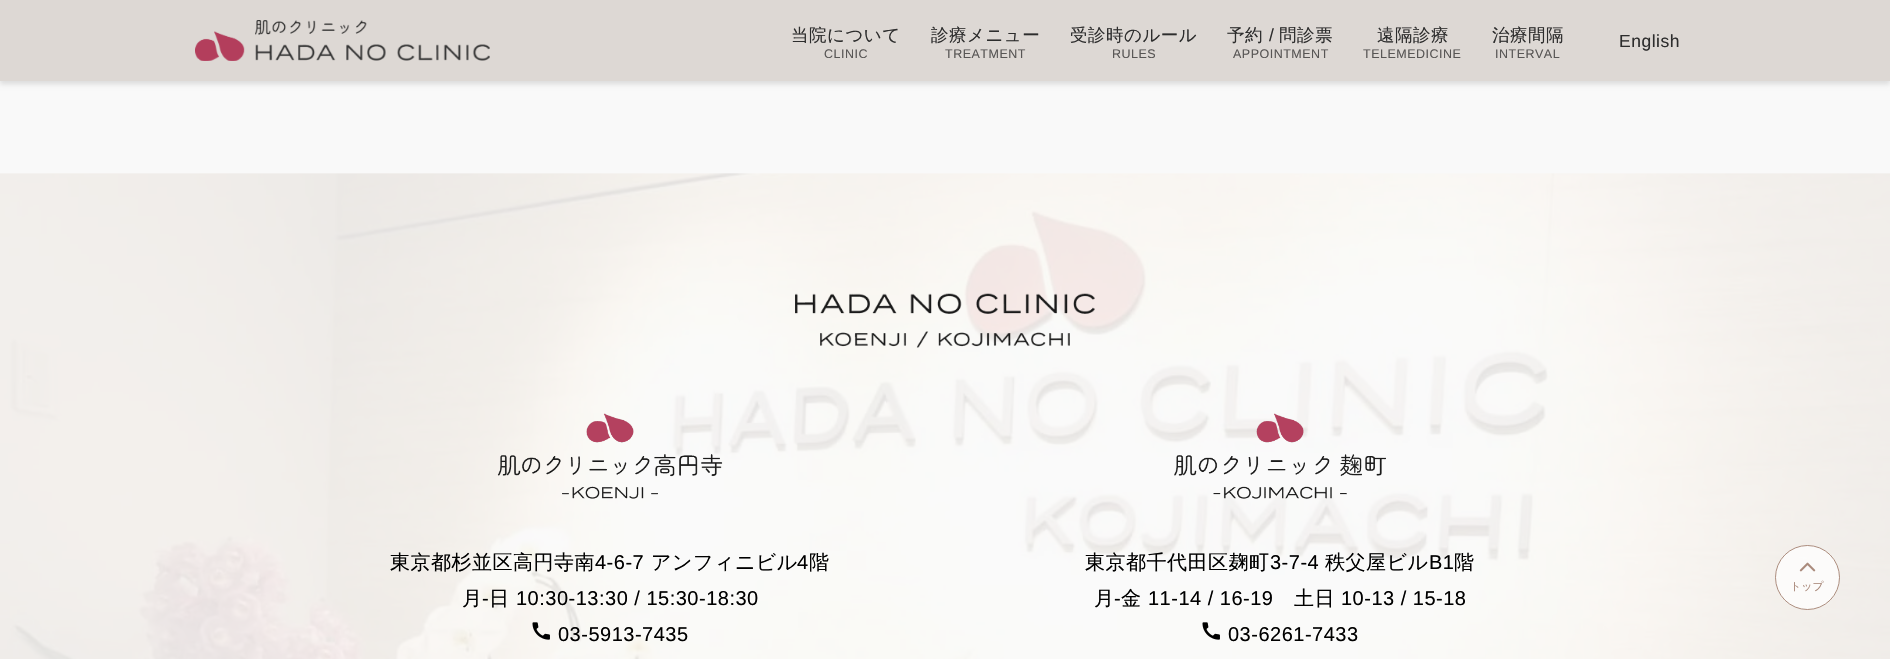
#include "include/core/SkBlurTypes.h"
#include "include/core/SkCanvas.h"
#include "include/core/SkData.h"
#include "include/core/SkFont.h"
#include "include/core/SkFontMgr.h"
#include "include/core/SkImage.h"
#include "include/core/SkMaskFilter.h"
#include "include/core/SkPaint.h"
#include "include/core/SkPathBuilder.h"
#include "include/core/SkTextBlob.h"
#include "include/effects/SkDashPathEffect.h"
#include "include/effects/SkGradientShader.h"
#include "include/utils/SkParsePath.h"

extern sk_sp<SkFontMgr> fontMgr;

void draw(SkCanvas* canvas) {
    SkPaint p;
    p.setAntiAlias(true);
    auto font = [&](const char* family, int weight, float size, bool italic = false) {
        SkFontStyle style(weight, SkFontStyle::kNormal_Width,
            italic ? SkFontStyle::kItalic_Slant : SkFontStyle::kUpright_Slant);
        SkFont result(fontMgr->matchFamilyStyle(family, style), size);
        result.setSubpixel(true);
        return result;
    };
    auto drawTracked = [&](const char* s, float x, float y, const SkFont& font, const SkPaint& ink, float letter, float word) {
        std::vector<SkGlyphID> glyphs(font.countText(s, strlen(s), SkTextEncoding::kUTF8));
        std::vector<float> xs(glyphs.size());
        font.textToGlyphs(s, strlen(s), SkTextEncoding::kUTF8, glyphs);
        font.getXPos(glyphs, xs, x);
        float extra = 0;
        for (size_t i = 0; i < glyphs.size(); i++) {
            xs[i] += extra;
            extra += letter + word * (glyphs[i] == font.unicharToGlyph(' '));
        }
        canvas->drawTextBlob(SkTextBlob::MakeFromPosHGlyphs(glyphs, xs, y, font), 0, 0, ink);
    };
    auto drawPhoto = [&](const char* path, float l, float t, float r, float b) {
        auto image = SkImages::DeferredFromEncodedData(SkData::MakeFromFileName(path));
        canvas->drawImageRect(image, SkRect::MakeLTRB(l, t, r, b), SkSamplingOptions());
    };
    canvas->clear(0xFFF9F9F9);
    p.setColor(0x1F000000);
    p.setMaskFilter(SkMaskFilter::MakeBlur(kNormal_SkBlurStyle, 2.5f));
    canvas->drawRect(SkRect::MakeLTRB(0, 3, 1890, 84), p);
    p.setMaskFilter(nullptr);
    p.setColor(0xFFDDD8D4);
    canvas->drawRect(SkRect::MakeLTRB(0, 0, 1890, 81), p);
    drawPhoto("media/1.png", 195, 20, 490, 61);
    auto font1 = font("WenQuanYi Zen Hei", 500, 17.5f);
    p.setColor(0xFF2D2D2D);
    drawTracked("当院について", 791, 41, font1, p, 0.5f, 0);
    auto font2 = font("Liberation Sans", 400, 12.5f);
    p.setColor(0xFF585655);
    drawTracked("CLINIC", 824, 58, font2, p, 0.5f, 0);
    p.setColor(0xFF2D2D2D);
    drawTracked("診療メニュー", 931, 41, font1, p, 0.5f, 0);
    p.setColor(0xFF585655);
    drawTracked("TREATMENT", 945, 58, font2, p, 0.5f, 0);
    p.setColor(0xFF2D2D2D);
    drawTracked("受診時のルール", 1070, 41, font1, p, 0.5f, 0);
    p.setColor(0xFF585655);
    drawTracked("RULES", 1112, 58, font2, p, 0.5f, 0);
    p.setColor(0xFF2D2D2D);
    drawTracked("予約", 1227, 41, font1, p, 0.5f, 0);
    auto font3 = font("Liberation Sans", 400, 17.5f);
    drawTracked("/", 1269, 41, font3, p, 0.5f, 0);
    drawTracked("問診票", 1279, 41, font1, p, 0.5f, 0);
    p.setColor(0xFF585655);
    drawTracked("APPOINTMENT", 1233, 58, font2, p, 0.5f, 0);
    p.setColor(0xFF2D2D2D);
    drawTracked("遠隔診療", 1377, 41, font1, p, 0.5f, 0);
    p.setColor(0xFF585655);
    drawTracked("TELEMEDICINE", 1363, 58, font2, p, 0.5f, 0);
    p.setColor(0xFF2D2D2D);
    drawTracked("治療間隔", 1492, 41, font1, p, 0.5f, 0);
    p.setColor(0xFF585655);
    drawTracked("INTERVAL", 1495, 58, font2, p, 0.5f, 0);
    p.setColor(0xFF2D2D2D);
    drawTracked("English", 1619, 47, font3, p, 0.5f, 0);
    drawPhoto("media/2.png", 0, 173, 1890, 659);
    drawPhoto("media/3.png", 795, 293, 1095, 348);
    drawPhoto("media/4.png", 497, 413, 723, 499);
    auto font4 = font("WenQuanYi Zen Hei", 500, 20);
    p.setColor(0xFF000000);
    drawTracked("東京都杉並区高円寺南", 390, 569, font4, p, 0.5f, 0);
    auto font5 = font("Liberation Sans", 400, 20);
    drawTracked("4-6-7", 595, 569, font5, p, 0.5f, 0);
    drawTracked("アンフィニビル", 651, 569, font4, p, 0.5f, 0);
    drawTracked("4", 797, 569, font5, p, 0.5f, 0);
    drawTracked("階", 809, 569, font4, p, 0.5f, 0);
    drawTracked("月", 462, 605, font4, p, 0.5f, 0);
    drawTracked("-", 482, 605, font5, p, 0.5f, 0);
    drawTracked("日", 489, 605, font4, p, 0.5f, 0);
    drawTracked("10:30-13:30 / 15:30-18:30", 516, 605, font5, p, 0.5f, 0);
    drawPhoto("media/5.png", 532, 622, 550, 640);
    drawTracked("03-5913-7435", 558, 641, font5, p, 0.5f, 0);
    drawPhoto("media/6.png", 1174, 413, 1386, 499);
    drawTracked("東京都千代田区麹町", 1085, 569, font4, p, 0.5f, 0);
    drawTracked("3-7-4", 1270, 569, font5, p, 0.5f, 0);
    drawTracked("秩父屋ビル", 1325, 569, font4, p, 0.5f, 0);
    drawTracked("B1", 1429, 569, font5, p, 0.5f, 0);
    drawTracked("階", 1454, 569, font4, p, 0.5f, 0);
    drawTracked("月", 1094, 605, font4, p, 0.5f, 0);
    drawTracked("-", 1114, 605, font5, p, 0.5f, 0);
    drawTracked("金", 1121, 605, font4, p, 0.5f, 0);
    drawTracked("11-14 / 16-19", 1148, 605, font5, p, 0.5f, 0);
    drawTracked("土日", 1294, 605, font4, p, 0.5f, 0);
    drawTracked("10-13 / 15-18", 1341, 605, font5, p, 0.5f, 0);
    drawPhoto("media/7.png", 1202, 622, 1220, 640);
    drawTracked("03-6261-7433", 1228, 641, font5, p, 0.5f, 0);
    p.setColor(0xBFFFFFFF);
    canvas->drawCircle(1807.5f, 577.5f, 32.5f, p);
    p.setStyle(SkPaint::kStroke_Style);
    p.setStrokeWidth(1);
    p.setColor(0xBF8F6552);
    canvas->drawCircle(1807.5f, 577.5f, 32, p);
    drawPhoto("media/8.png", 1799, 562, 1816, 572);
    auto font6 = font("WenQuanYi Zen Hei", 500, 11);
    p.setStyle(SkPaint::kFill_Style);
    p.setColor(0xFFA88778);
    canvas->drawString("トップ", 1790, 590, font6, p);
}
